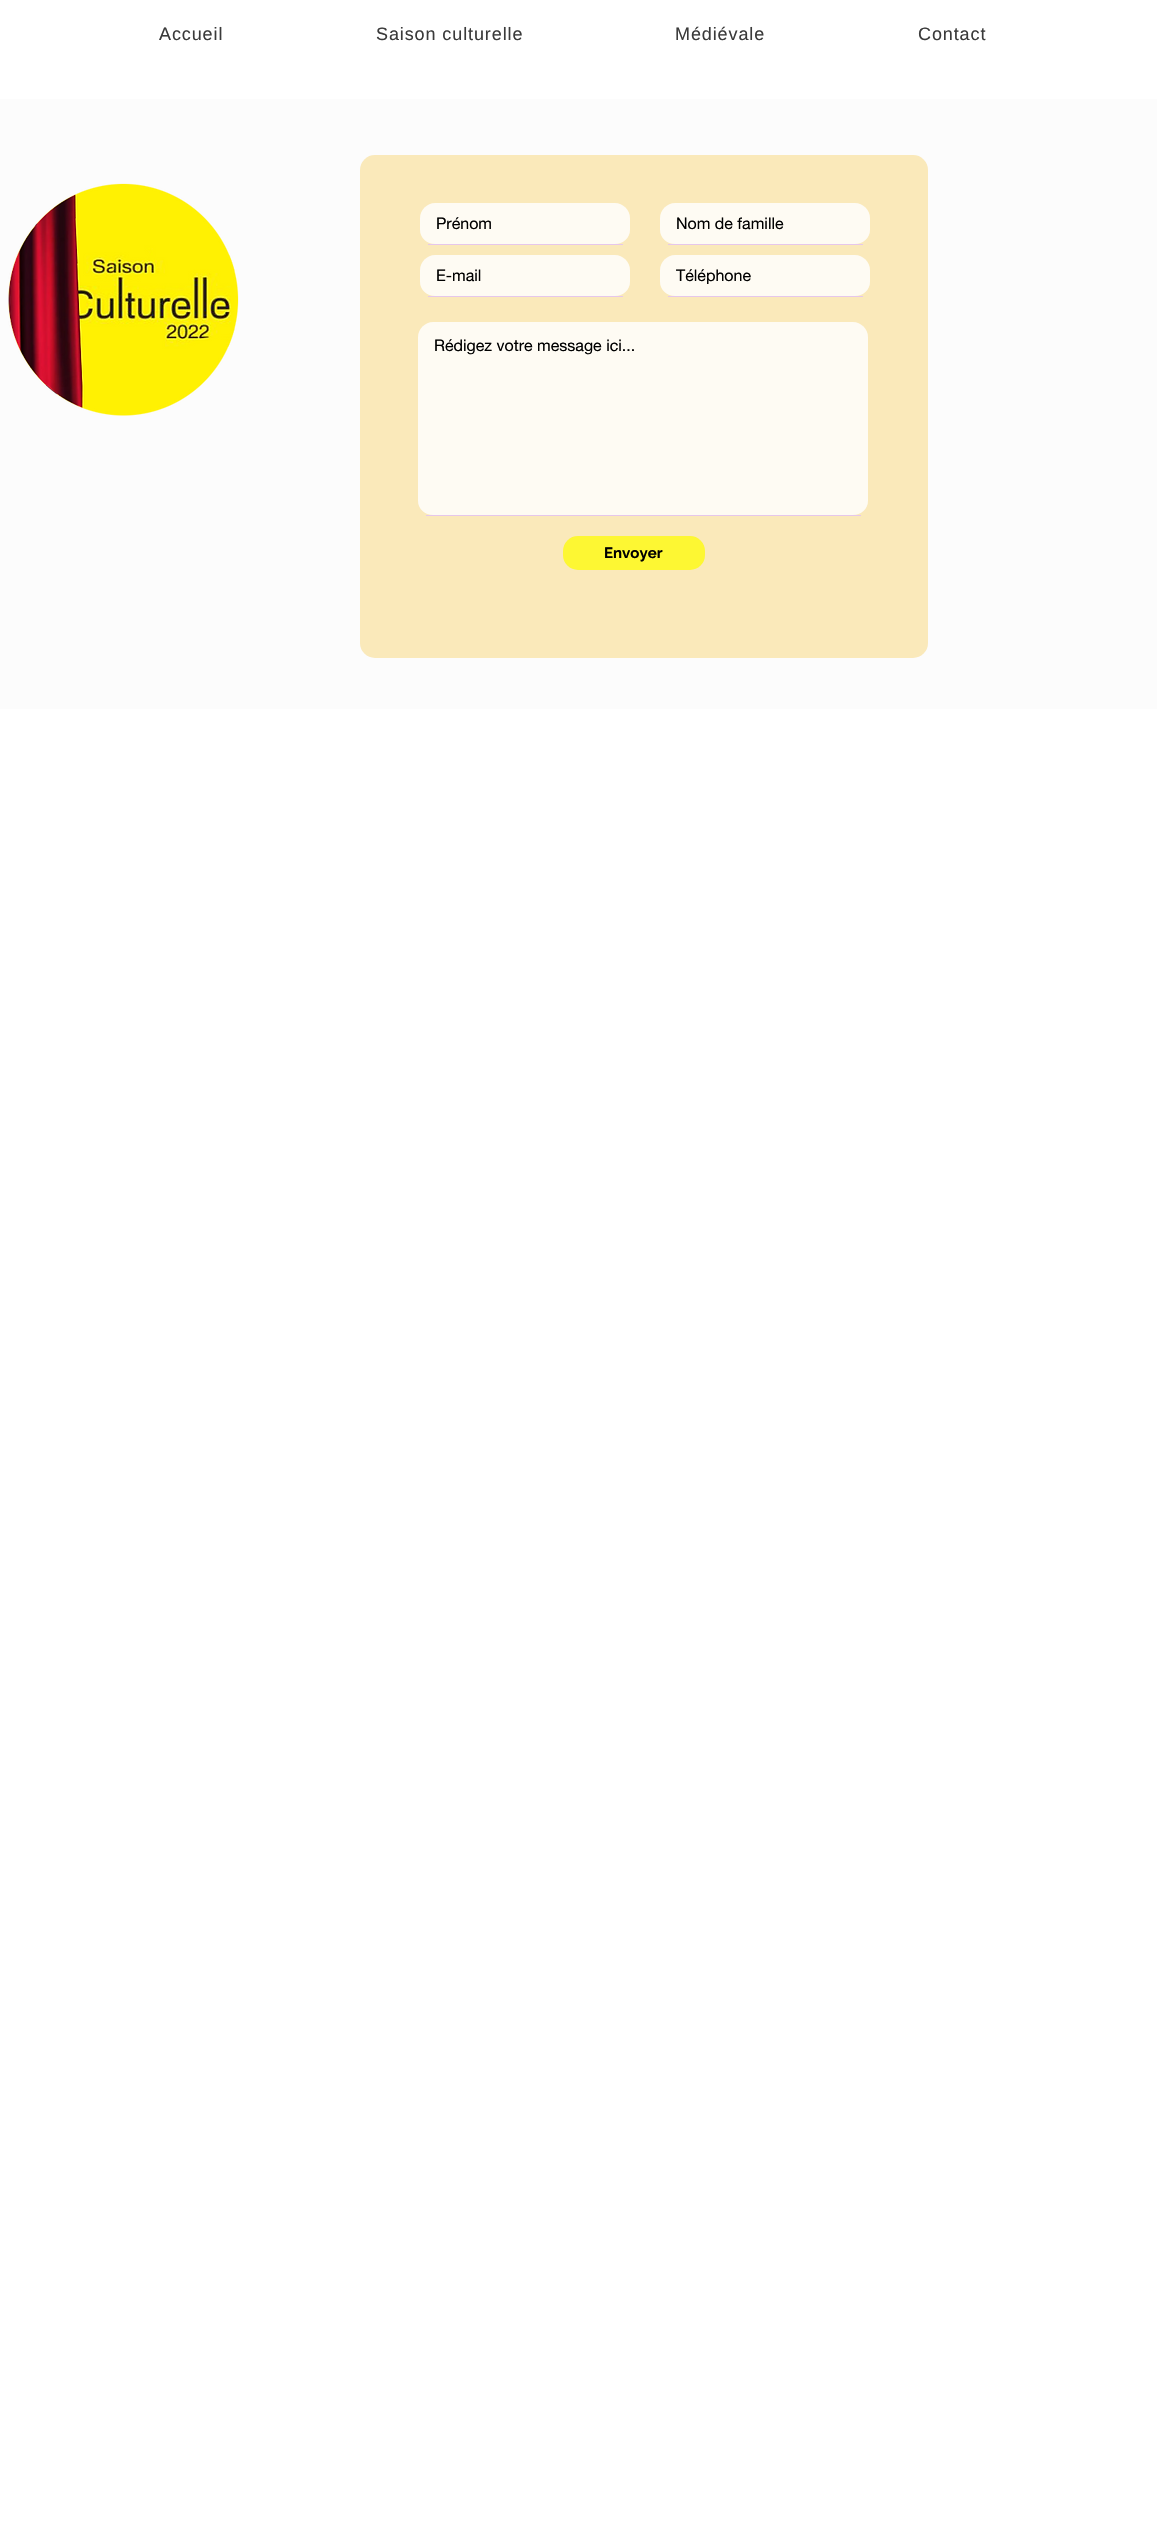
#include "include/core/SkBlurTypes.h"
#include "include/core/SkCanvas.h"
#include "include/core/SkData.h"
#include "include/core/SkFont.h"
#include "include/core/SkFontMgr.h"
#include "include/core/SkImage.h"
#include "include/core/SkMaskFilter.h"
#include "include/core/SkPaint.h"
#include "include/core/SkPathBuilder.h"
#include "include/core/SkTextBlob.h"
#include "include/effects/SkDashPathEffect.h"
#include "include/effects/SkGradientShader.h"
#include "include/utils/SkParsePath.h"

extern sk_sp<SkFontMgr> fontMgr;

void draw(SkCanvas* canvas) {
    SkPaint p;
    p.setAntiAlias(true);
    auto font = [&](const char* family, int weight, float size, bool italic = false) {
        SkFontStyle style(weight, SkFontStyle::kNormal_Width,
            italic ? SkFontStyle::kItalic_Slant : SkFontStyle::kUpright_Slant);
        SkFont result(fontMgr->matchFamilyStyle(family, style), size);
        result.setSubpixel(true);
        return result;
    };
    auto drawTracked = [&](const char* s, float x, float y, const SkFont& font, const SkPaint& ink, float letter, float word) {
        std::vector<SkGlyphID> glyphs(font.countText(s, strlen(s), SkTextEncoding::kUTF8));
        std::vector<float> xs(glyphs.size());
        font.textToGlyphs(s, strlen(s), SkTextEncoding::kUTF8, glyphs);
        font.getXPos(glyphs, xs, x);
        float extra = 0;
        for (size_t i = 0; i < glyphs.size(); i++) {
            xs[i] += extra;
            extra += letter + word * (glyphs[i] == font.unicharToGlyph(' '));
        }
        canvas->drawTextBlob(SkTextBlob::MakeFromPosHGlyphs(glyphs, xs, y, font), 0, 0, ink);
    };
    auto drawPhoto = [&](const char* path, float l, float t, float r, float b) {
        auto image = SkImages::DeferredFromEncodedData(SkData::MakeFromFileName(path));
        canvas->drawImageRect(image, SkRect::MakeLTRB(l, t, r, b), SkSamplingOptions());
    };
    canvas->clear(0xFFFFFFFF);
    auto font1 = font("Liberation Sans", 400, 18);
    p.setColor(0xFF3B3B3B);
    {
        const struct { const char* s; float x, y; } items[] = {
            {"Accueil", 159, 40},
            {"Saison culturelle", 376, 40},
            {"Médiévale", 675, 40},
            {"Contact", 918, 40},
        };
        for (auto [s, x, y] : items) {
            drawTracked(s, x, y, font1, p, 0.9f, 0);
        }
    }
    p.setColor(0xFFFCFCFC);
    canvas->drawRect(SkRect::MakeLTRB(0, 99, 1157, 709), p);
    drawPhoto("media/1.png", 8, 183, 239, 416);
    p.setColor(0xFFFAE9BA);
    canvas->drawRoundRect(SkRect::MakeLTRB(360, 155, 928, 658), 15, 15, p);
    p.setColor(0xFFFEFBF3);
    canvas->drawPath(SkPathBuilder().moveTo(435, 203).lineTo(615, 203).cubicTo(623, 203, 630, 210, 630, 218).lineTo(630, 230).cubicTo(630, 238, 623, 244, 615, 244).lineTo(435, 244).cubicTo(427, 244, 420, 238, 420, 230).lineTo(420, 218).cubicTo(420, 210, 427, 203, 435, 203).close().detach(), p);
    p.setColor(0xFFE6C7EB);
    canvas->drawRect(SkRect::MakeLTRB(428, 244, 623, 245), p);
    auto font2 = font("helvetica neue", 400, 16);
    p.setColor(0xFF000000);
    canvas->drawString("Prénom", 436, 229, font2, p);
    p.setColor(0xFFFEFBF3);
    canvas->drawPath(SkPathBuilder().moveTo(675, 203).lineTo(855, 203).cubicTo(863, 203, 870, 210, 870, 218).lineTo(870, 230).cubicTo(870, 238, 863, 244, 855, 244).lineTo(675, 244).cubicTo(667, 244, 660, 238, 660, 230).lineTo(660, 218).cubicTo(660, 210, 667, 203, 675, 203).close().detach(), p);
    p.setColor(0xFFE6C7EB);
    canvas->drawRect(SkRect::MakeLTRB(668, 244, 863, 245), p);
    p.setColor(0xFF000000);
    canvas->drawString("Nom de famille", 676, 229, font2, p);
    p.setColor(0xFFFEFBF3);
    canvas->drawPath(SkPathBuilder().moveTo(435, 255).lineTo(615, 255).cubicTo(623, 255, 630, 262, 630, 270).lineTo(630, 282).cubicTo(630, 290, 623, 296, 615, 296).lineTo(435, 296).cubicTo(427, 296, 420, 290, 420, 282).lineTo(420, 270).cubicTo(420, 262, 427, 255, 435, 255).close().detach(), p);
    p.setColor(0xFFE6C7EB);
    canvas->drawRect(SkRect::MakeLTRB(428, 296, 623, 297), p);
    p.setColor(0xFF000000);
    canvas->drawString("E-mail", 436, 281, font2, p);
    p.setColor(0xFFFEFBF3);
    canvas->drawPath(SkPathBuilder().moveTo(675, 255).lineTo(855, 255).cubicTo(863, 255, 870, 262, 870, 270).lineTo(870, 282).cubicTo(870, 290, 863, 296, 855, 296).lineTo(675, 296).cubicTo(667, 296, 660, 290, 660, 282).lineTo(660, 270).cubicTo(660, 262, 667, 255, 675, 255).close().detach(), p);
    p.setColor(0xFFE6C7EB);
    canvas->drawRect(SkRect::MakeLTRB(668, 296, 863, 297), p);
    canvas->save();
    canvas->clipRect(SkRect::MakeLTRB(676, 266, 867, 284));
    p.setColor(0xFF000000);
    canvas->drawString("Téléphone", 676, 281, font2, p);
    canvas->restore();
    p.setColor(0xFFFEFBF3);
    canvas->drawPath(SkPathBuilder().moveTo(433, 322).lineTo(853, 322).cubicTo(861, 322, 868, 329, 868, 337).lineTo(868, 501).cubicTo(868, 509, 861, 515, 853, 515).lineTo(433, 515).cubicTo(425, 515, 418, 509, 418, 501).lineTo(418, 337).cubicTo(418, 329, 425, 322, 433, 322).close().detach(), p);
    p.setColor(0xFFE6C7EB);
    canvas->drawRect(SkRect::MakeLTRB(426, 515, 861, 516), p);
    p.setColor(0xFF000000);
    canvas->drawString("Rédigez votre message ici...", 434, 351, font2, p);
    p.setColor(0xFFFDF733);
    canvas->drawRoundRect(SkRect::MakeLTRB(563, 536, 705, 570), 15, 15, p);
    auto font3 = font("Raleway", 700, 15);
    p.setColor(0xFF000000);
    canvas->drawString("Envoyer", 604, 558, font3, p);
}
